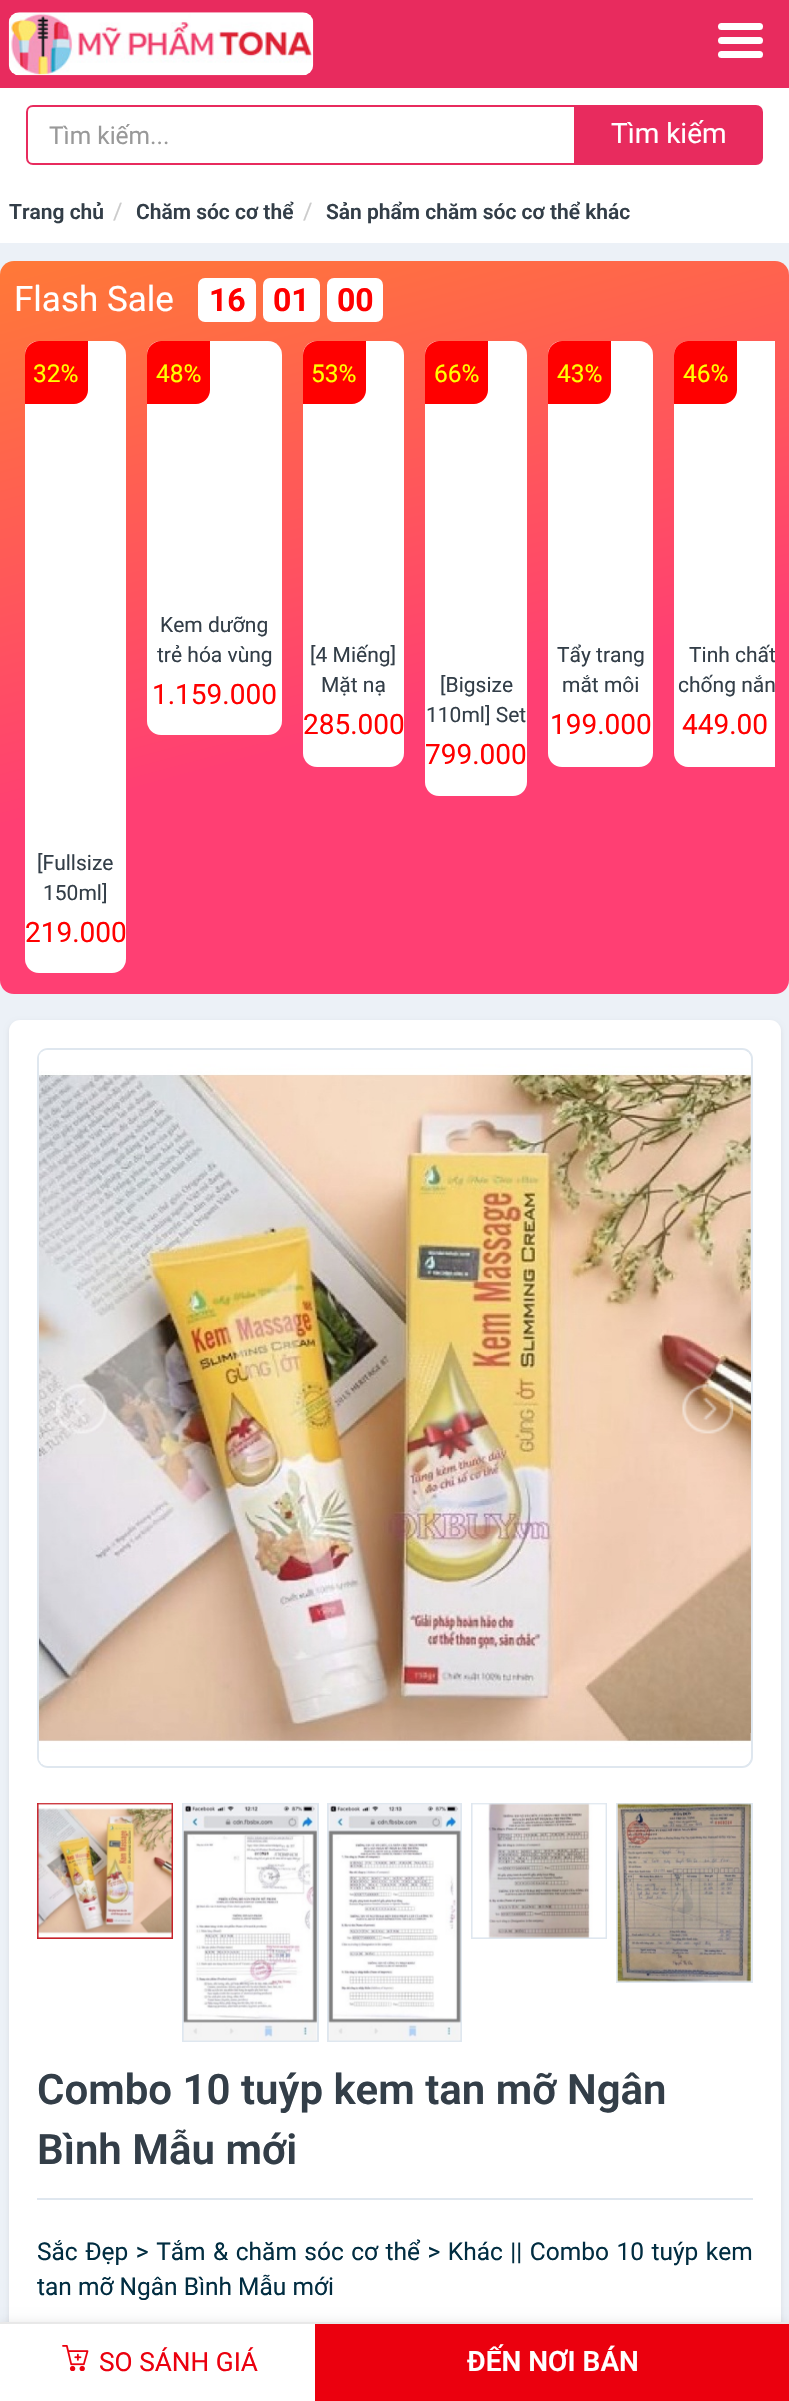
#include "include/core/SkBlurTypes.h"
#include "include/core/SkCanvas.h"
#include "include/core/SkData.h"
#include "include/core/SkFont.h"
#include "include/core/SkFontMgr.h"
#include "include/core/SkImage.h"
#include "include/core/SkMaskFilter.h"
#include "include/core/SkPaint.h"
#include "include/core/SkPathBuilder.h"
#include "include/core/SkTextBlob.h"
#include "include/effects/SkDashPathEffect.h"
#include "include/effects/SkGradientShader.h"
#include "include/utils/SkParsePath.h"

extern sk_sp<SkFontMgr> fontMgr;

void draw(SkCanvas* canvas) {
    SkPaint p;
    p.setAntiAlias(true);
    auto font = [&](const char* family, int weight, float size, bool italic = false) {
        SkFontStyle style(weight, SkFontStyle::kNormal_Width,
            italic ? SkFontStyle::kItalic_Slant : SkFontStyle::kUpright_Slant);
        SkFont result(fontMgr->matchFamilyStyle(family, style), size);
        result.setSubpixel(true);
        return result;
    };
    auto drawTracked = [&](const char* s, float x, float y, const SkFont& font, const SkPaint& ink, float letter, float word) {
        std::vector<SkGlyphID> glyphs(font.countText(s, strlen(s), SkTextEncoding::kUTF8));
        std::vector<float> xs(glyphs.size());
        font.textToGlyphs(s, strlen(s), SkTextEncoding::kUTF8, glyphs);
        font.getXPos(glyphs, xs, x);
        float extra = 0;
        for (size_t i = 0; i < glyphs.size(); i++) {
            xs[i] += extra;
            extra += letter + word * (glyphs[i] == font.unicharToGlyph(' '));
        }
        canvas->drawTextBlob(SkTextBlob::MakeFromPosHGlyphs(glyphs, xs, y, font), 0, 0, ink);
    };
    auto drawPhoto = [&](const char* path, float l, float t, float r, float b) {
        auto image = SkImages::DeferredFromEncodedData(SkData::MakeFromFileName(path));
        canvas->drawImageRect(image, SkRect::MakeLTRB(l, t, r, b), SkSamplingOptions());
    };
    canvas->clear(0xFFFFFFFF);
    p.setColor(0xFFE82B5E);
    canvas->drawRect(SkRect::MakeLTRB(0, 0, 789, 88), p);
    drawPhoto("media/1.png", 8, 12, 314, 76);
    p.setColor(0xFFFFFFFF);
    canvas->drawRoundRect(SkRect::MakeLTRB(718, 23, 763, 30), 3.5f, 3.5f, p);
    canvas->drawRoundRect(SkRect::MakeLTRB(718, 37, 763, 44), 3.5f, 3.5f, p);
    canvas->drawRoundRect(SkRect::MakeLTRB(718, 51, 763, 58), 3.5f, 3.5f, p);
    p.setStyle(SkPaint::kStroke_Style);
    p.setStrokeWidth(2);
    p.setColor(0xFFE82B5E);
    canvas->drawPath(SkPathBuilder().moveTo(33, 106).lineTo(575, 106).lineTo(575, 164).lineTo(33, 164).cubicTo(29.5f, 164, 27, 161.5f, 27, 158).lineTo(27, 112).cubicTo(27, 108.5f, 29.5f, 106, 33, 106).close().detach(), p);
    auto font1 = font("Roboto", 400, 24.5f);
    p.setStyle(SkPaint::kFill_Style);
    p.setColor(0xFF999999);
    canvas->drawString("Tìm kiếm...", 49, 144, font1, p);
    p.setColor(0xFFE82B5E);
    canvas->drawPath(SkPathBuilder().moveTo(575, 106).lineTo(756, 106).cubicTo(759.5f, 106, 762, 108.5f, 762, 112).lineTo(762, 158).cubicTo(762, 161.5f, 759.5f, 164, 756, 164).lineTo(575, 164).close().detach(), p);
    p.setStyle(SkPaint::kStroke_Style);
    canvas->drawPath(SkPathBuilder().moveTo(575, 106).lineTo(756, 106).cubicTo(759.5f, 106, 762, 108.5f, 762, 112).lineTo(762, 158).cubicTo(762, 161.5f, 759.5f, 164, 756, 164).lineTo(575, 164).close().detach(), p);
    auto font2 = font("Roboto", 400, 28);
    p.setStyle(SkPaint::kFill_Style);
    p.setColor(0xFFFFFFFF);
    canvas->drawString("Tìm kiếm", 611, 143, font2, p);
    auto font3 = font("Roboto", 600, 21);
    p.setColor(0xFF333E48);
    canvas->drawString("Trang chủ", 9, 219, font3, p);
    auto font4 = font("Roboto", 400, 23);
    p.setColor(0xFFCCCCCC);
    canvas->drawString("/", 113, 219, font4, p);
    p.setColor(0xFF333E48);
    canvas->drawString("Chăm sóc cơ thể", 136, 219, font3, p);
    p.setColor(0xFFCCCCCC);
    canvas->drawString("/", 303, 219, font4, p);
    p.setColor(0xFF333E48);
    canvas->drawString("Sản phẩm chăm sóc cơ thể khác", 326, 219, font3, p);
    p.setColor(0xFFECF1F7);
    canvas->drawRect(SkRect::MakeLTRB(0, 243, 789, 2322), p);
    {
        const SkColor colors[] = {0xFFFF7937, 0xFFFF3F73};
        const float stops[] = {0, 0.6f};
        const SkPoint ends[] = {{277, 187}, {513, 1068}};
        p.setShader(SkGradientShader::MakeLinear(ends, colors, stops, 2, SkTileMode::kClamp));
        p.setAlpha(255);
    }
    canvas->drawRoundRect(SkRect::MakeLTRB(0, 261, 789, 994), 14, 14, p);
    auto font5 = font("Roboto", 400, 35);
    p.setShader(nullptr);
    p.setColor(0xFFFFFFFF);
    canvas->drawString("Flash Sale", 14, 311, font5, p);
    canvas->drawRoundRect(SkRect::MakeLTRB(198, 278, 256, 322), 7, 7, p);
    auto font6 = font("Roboto", 700, 32);
    p.setColor(0xFFFF0000);
    canvas->drawString("16", 209, 311, font6, p);
    p.setColor(0xFFFFFFFF);
    canvas->drawRoundRect(SkRect::MakeLTRB(263, 278, 320, 322), 7, 7, p);
    p.setColor(0xFFFF0000);
    canvas->drawString("01", 273, 311, font6, p);
    p.setColor(0xFFFFFFFF);
    canvas->drawRoundRect(SkRect::MakeLTRB(327, 278, 383, 322), 7, 7, p);
    p.setColor(0xFFFF0000);
    canvas->drawString("00", 337, 311, font6, p);
    p.setColor(0xFFFFFFFF);
    canvas->drawRoundRect(SkRect::MakeLTRB(25, 341, 126, 973), 14, 14, p);
    p.setColor(0xFFFF0000);
    canvas->drawPath(SkPathBuilder().moveTo(39, 341).lineTo(88, 341).lineTo(88, 390).cubicTo(88, 397.5f, 81.5f, 404, 74, 404).lineTo(25, 404).lineTo(25, 355).cubicTo(25, 347.5f, 31.5f, 341, 39, 341).close().detach(), p);
    p.setColor(0xFFFFFF00);
    canvas->drawString("32%", 33, 382, font1, p);
    auto font7 = font("Roboto", 400, 21);
    p.setColor(0xFF333E48);
    canvas->drawString("[Fullsize", 37, 870, font7, p);
    canvas->drawString("150ml]", 43, 900, font7, p);
    p.setColor(0xFFFF0000);
    canvas->drawString("219.000", 25, 942, font2, p);
    p.setColor(0xFFFFFFFF);
    canvas->drawRoundRect(SkRect::MakeLTRB(147, 341, 282, 735), 14, 14, p);
    p.setColor(0xFFFF0000);
    canvas->drawPath(SkPathBuilder().moveTo(161, 341).lineTo(210, 341).lineTo(210, 390).cubicTo(210, 397.5f, 203.5f, 404, 196, 404).lineTo(147, 404).lineTo(147, 355).cubicTo(147, 347.5f, 153.5f, 341, 161, 341).close().detach(), p);
    p.setColor(0xFFFFFF00);
    canvas->drawString("48%", 156, 382, font1, p);
    p.setColor(0xFF333E48);
    canvas->drawString("Kem dưỡng", 160, 632, font7, p);
    canvas->drawString("trẻ hóa vùng", 157, 662, font7, p);
    p.setColor(0xFFFF0000);
    canvas->drawString("1.159.000", 152, 704, font2, p);
    p.setColor(0xFFFFFFFF);
    canvas->drawRoundRect(SkRect::MakeLTRB(303, 341, 404, 767), 14, 14, p);
    p.setColor(0xFFFF0000);
    canvas->drawPath(SkPathBuilder().moveTo(317, 341).lineTo(366, 341).lineTo(366, 390).cubicTo(366, 397.5f, 359.5f, 404, 352, 404).lineTo(303, 404).lineTo(303, 355).cubicTo(303, 347.5f, 309.5f, 341, 317, 341).close().detach(), p);
    p.setColor(0xFFFFFF00);
    canvas->drawString("53%", 311, 382, font1, p);
    p.setColor(0xFF333E48);
    canvas->drawString("[4 Miếng]", 310, 662, font7, p);
    canvas->drawString("Mặt nạ", 321, 692, font7, p);
    p.setColor(0xFFFF0000);
    canvas->drawString("285.000", 303, 734, font2, p);
    p.setColor(0xFFFFFFFF);
    canvas->drawRoundRect(SkRect::MakeLTRB(425, 341, 527, 796), 14, 14, p);
    p.setColor(0xFFFF0000);
    canvas->drawPath(SkPathBuilder().moveTo(439, 341).lineTo(488, 341).lineTo(488, 390).cubicTo(488, 397.5f, 481.5f, 404, 474, 404).lineTo(425, 404).lineTo(425, 355).cubicTo(425, 347.5f, 431.5f, 341, 439, 341).close().detach(), p);
    p.setColor(0xFFFFFF00);
    canvas->drawString("66%", 434, 382, font1, p);
    p.setColor(0xFF333E48);
    canvas->drawString("[Bigsize", 440, 692, font7, p);
    canvas->drawString("110ml] Set", 426, 722, font7, p);
    p.setColor(0xFFFF0000);
    canvas->drawString("799.000", 425, 764, font2, p);
    p.setColor(0xFFFFFFFF);
    canvas->drawRoundRect(SkRect::MakeLTRB(548, 341, 653, 767), 14, 14, p);
    p.setColor(0xFFFF0000);
    canvas->drawPath(SkPathBuilder().moveTo(562, 341).lineTo(611, 341).lineTo(611, 390).cubicTo(611, 397.5f, 604.5f, 404, 597, 404).lineTo(548, 404).lineTo(548, 355).cubicTo(548, 347.5f, 554.5f, 341, 562, 341).close().detach(), p);
    p.setColor(0xFFFFFF00);
    canvas->drawString("43%", 557, 382, font1, p);
    p.setColor(0xFF333E48);
    canvas->drawString("Tẩy trang", 557, 662, font7, p);
    canvas->drawString("mắt môi", 562, 692, font7, p);
    p.setColor(0xFFFF0000);
    canvas->drawString("199.000", 550, 734, font2, p);
    p.setColor(0xFFFFFFFF);
    canvas->drawPath(SkPathBuilder().moveTo(688, 341).lineTo(775, 341).lineTo(775, 767).lineTo(688, 767).cubicTo(680.5f, 767, 674, 760.5f, 674, 753).lineTo(674, 355).cubicTo(674, 347.5f, 680.5f, 341, 688, 341).close().detach(), p);
    p.setColor(0xFFFF0000);
    canvas->drawPath(SkPathBuilder().moveTo(688, 341).lineTo(737, 341).lineTo(737, 390).cubicTo(737, 397.5f, 730.5f, 404, 723, 404).lineTo(674, 404).lineTo(674, 355).cubicTo(674, 347.5f, 680.5f, 341, 688, 341).close().detach(), p);
    p.setColor(0xFFFFFF00);
    canvas->drawString("46%", 683, 382, font1, p);
    canvas->save();
    canvas->clipRect(SkRect::MakeLTRB(674, 642, 775, 702));
    p.setColor(0xFF333E48);
    canvas->drawString("Tinh chất", 689, 662, font7, p);
    canvas->restore();
    canvas->drawString("chống nắn", 678, 692, font7, p);
    p.setColor(0xFFFF0000);
    canvas->drawString("449.00", 682, 734, font2, p);
    p.setColor(0x14000000);
    p.setMaskFilter(SkMaskFilter::MakeBlur(kNormal_SkBlurStyle, 2.5f));
    canvas->drawRoundRect(SkRect::MakeLTRB(9, 1022, 781, 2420), 11, 11, p);
    p.setMaskFilter(nullptr);
    p.setColor(0xFFFFFFFF);
    canvas->drawRoundRect(SkRect::MakeLTRB(9, 1020, 781, 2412), 11, 11, p);
    p.setStyle(SkPaint::kStroke_Style);
    p.setColor(0xFFDFE7EF);
    canvas->drawRoundRect(SkRect::MakeLTRB(38, 1049, 752, 1767), 10, 10, p);
    drawPhoto("media/2.png", 39, 1050, 751, 1766);
    drawPhoto("media/3.png", 56, 1384, 108, 1434);
    drawPhoto("media/4.png", 682, 1383, 734, 1434);
    p.setColor(0xFFC72129);
    canvas->drawRect(SkRect::MakeLTRB(38, 1804, 172, 1938), p);
    drawPhoto("media/5.png", 37, 1803, 172, 1938);
    p.setColor(0xFFDFE7EF);
    canvas->drawRect(SkRect::MakeLTRB(183, 1804, 318, 2041), p);
    drawPhoto("media/6.png", 183, 1804, 317, 2041);
    canvas->drawRect(SkRect::MakeLTRB(328, 1804, 461, 2041), p);
    drawPhoto("media/7.png", 328, 1804, 461, 2041);
    canvas->drawRect(SkRect::MakeLTRB(472, 1804, 606, 1938), p);
    drawPhoto("media/8.png", 472, 1803, 606, 1938);
    canvas->drawRect(SkRect::MakeLTRB(617, 1804, 752, 1982), p);
    drawPhoto("media/9.png", 617, 1803, 751, 1982);
    auto font8 = font("Roboto", 600, 42);
    p.setStyle(SkPaint::kFill_Style);
    p.setColor(0xFF333E48);
    canvas->drawString("Combo 10 tuýp kem tan mỡ Ngân", 37, 2104, font8, p);
    canvas->drawString("Bình Mẫu mới", 37, 2164, font8, p);
    p.setColor(0xFFDFE7EF);
    canvas->drawRect(SkRect::MakeLTRB(37, 2198, 753, 2200), p);
    p.setColor(0xFF012D41);
    drawTracked("Sắc Đẹp > Tắm & chăm sóc cơ thể > Khác || Combo 10 tuýp kem", 37, 2260, font1, p, 0, 1.4f);
    canvas->drawString("tan mỡ Ngân Bình Mẫu mới", 37, 2295, font1, p);
    p.setColor(0x17000000);
    p.setMaskFilter(SkMaskFilter::MakeBlur(kNormal_SkBlurStyle, 5));
    canvas->drawRect(SkRect::MakeLTRB(0, 2322, 789, 2401), p);
    p.setMaskFilter(nullptr);
    p.setColor(0xFFFFFFFF);
    canvas->drawRect(SkRect::MakeLTRB(0, 2324, 315, 2401), p);
    p.setColor(0xFFE8E8E8);
    canvas->drawRect(SkRect::MakeLTRB(0, 2322, 789, 2324), p);
    drawPhoto("media/10.png", 62, 2345, 89, 2371);
    auto font9 = font("Roboto", 400, 26.25f);
    p.setColor(0xFFEB000E);
    canvas->drawString("SO SÁNH GIÁ", 99, 2371, font9, p);
    canvas->drawRect(SkRect::MakeLTRB(315, 2324, 789, 2401), p);
    auto font10 = font("Roboto", 600, 28);
    p.setColor(0xFFFFFFFF);
    canvas->drawString("ĐẾN NƠI BÁN", 467, 2371, font10, p);
}
